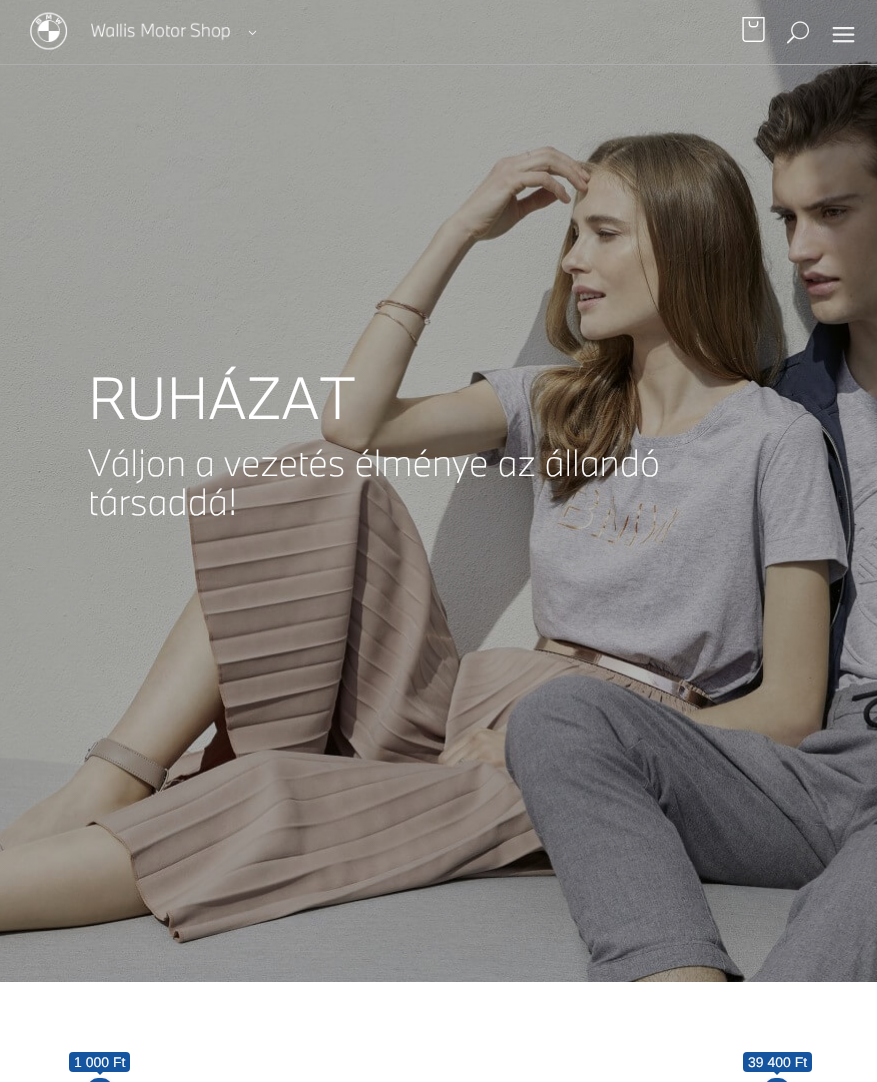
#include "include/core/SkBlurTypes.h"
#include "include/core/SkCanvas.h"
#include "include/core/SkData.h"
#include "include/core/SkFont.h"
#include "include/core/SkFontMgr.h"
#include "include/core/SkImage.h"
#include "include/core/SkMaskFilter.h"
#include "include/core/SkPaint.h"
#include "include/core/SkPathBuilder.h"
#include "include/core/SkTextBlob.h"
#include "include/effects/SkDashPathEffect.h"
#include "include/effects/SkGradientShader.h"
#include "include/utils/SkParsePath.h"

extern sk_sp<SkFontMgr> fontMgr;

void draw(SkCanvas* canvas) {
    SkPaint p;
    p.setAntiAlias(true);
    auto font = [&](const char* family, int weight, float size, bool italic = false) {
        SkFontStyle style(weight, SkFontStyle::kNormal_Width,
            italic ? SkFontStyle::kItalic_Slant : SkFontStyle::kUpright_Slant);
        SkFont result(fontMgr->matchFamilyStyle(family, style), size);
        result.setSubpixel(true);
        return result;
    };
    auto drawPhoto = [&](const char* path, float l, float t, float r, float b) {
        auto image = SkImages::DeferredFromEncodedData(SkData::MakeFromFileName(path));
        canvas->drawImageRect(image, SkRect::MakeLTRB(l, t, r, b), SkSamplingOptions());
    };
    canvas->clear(0xFFFFFFFF);
    drawPhoto("media/6.png", 0, 0, 877, 982);
    p.setColor(0xFCADADAD);
    canvas->drawRect(SkRect::MakeLTRB(0, 64, 877, 65), p);
    drawPhoto("media/1.png", 30, 12, 230, 50);
    drawPhoto("media/2.png", 248, 30, 257, 35);
    drawPhoto("media/3.png", 742, 17, 765, 42);
    drawPhoto("media/4.png", 786, 21, 809, 44);
    drawPhoto("media/5.png", 832, 27, 855, 43);
    auto font1 = font("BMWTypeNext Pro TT", 300, 55);
    p.setColor(0xFFFFFFFF);
    canvas->drawString("RUHÁZAT", 88, 419, font1, p);
    auto font2 = font("BMWTypeNext Pro TT", 100, 35);
    canvas->drawString("Váljon a vezetés élménye az állandó", 88, 476, font2, p);
    canvas->drawString("társaddá!", 88, 515, font2, p);
    p.setColor(0xFF15559F);
    canvas->drawRoundRect(SkRect::MakeLTRB(69, 1052, 130, 1072), 4, 4, p);
    auto font3 = font("Liberation Sans", 400, 14);
    p.setColor(0xFFFFFFFF);
    canvas->drawString("1 000 Ft", 74, 1067, font3, p);
    p.setColor(0xFF15559F);
    canvas->drawPath(SkPathBuilder().moveTo(97, 1072).lineTo(103, 1072).lineTo(100, 1075).close().detach(), p);
    canvas->drawRoundRect(SkRect::MakeLTRB(743, 1052, 812, 1072), 4, 4, p);
    p.setColor(0xFFFFFFFF);
    canvas->drawString("39 400 Ft", 748, 1067, font3, p);
    p.setColor(0xFF15559F);
    canvas->drawPath(SkPathBuilder().moveTo(774, 1072).lineTo(780, 1072).lineTo(777, 1075).close().detach(), p);
    p.setColor(0x4D0000FF);
    p.setMaskFilter(SkMaskFilter::MakeBlur(kNormal_SkBlurStyle, 1.5f));
    canvas->drawRoundRect(SkRect::MakeLTRB(88, 1079, 112, 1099), 12, 12, p);
    p.setMaskFilter(nullptr);
    p.setStyle(SkPaint::kStroke_Style);
    p.setStrokeWidth(4);
    p.setColor(0xFF15559F);
    canvas->drawRoundRect(SkRect::MakeLTRB(90, 1080, 110, 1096), 10, 10, p);
    p.setStyle(SkPaint::kFill_Style);
    p.setColor(0x4D0000FF);
    p.setMaskFilter(SkMaskFilter::MakeBlur(kNormal_SkBlurStyle, 1.5f));
    canvas->drawRoundRect(SkRect::MakeLTRB(765, 1079, 789, 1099), 12, 12, p);
    p.setMaskFilter(nullptr);
    p.setStyle(SkPaint::kStroke_Style);
    p.setColor(0xFF15559F);
    canvas->drawRoundRect(SkRect::MakeLTRB(767, 1080, 787, 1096), 10, 10, p);
}
